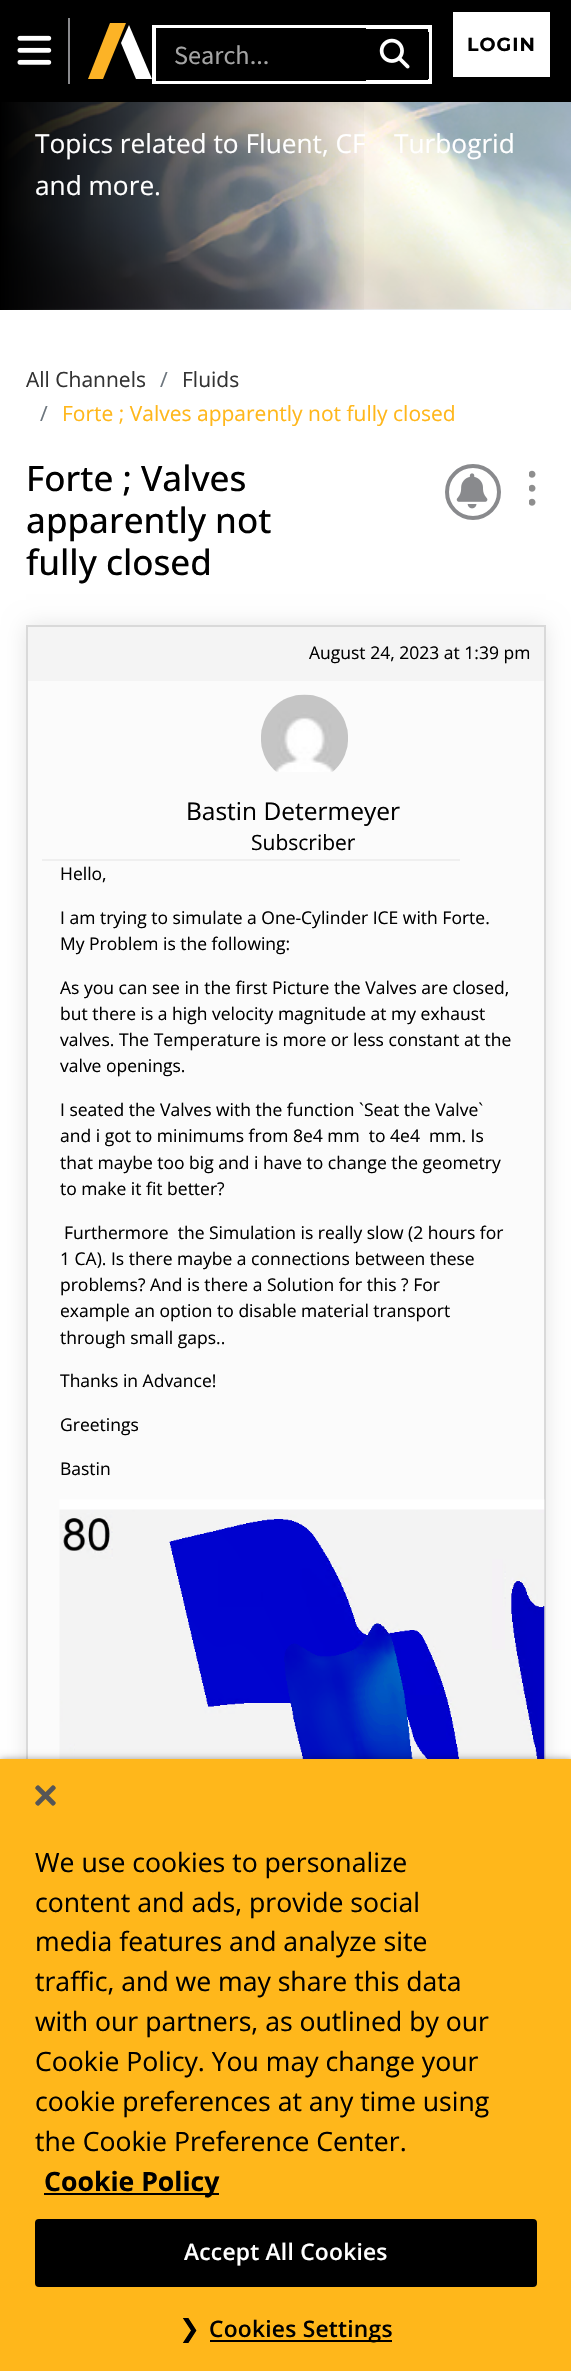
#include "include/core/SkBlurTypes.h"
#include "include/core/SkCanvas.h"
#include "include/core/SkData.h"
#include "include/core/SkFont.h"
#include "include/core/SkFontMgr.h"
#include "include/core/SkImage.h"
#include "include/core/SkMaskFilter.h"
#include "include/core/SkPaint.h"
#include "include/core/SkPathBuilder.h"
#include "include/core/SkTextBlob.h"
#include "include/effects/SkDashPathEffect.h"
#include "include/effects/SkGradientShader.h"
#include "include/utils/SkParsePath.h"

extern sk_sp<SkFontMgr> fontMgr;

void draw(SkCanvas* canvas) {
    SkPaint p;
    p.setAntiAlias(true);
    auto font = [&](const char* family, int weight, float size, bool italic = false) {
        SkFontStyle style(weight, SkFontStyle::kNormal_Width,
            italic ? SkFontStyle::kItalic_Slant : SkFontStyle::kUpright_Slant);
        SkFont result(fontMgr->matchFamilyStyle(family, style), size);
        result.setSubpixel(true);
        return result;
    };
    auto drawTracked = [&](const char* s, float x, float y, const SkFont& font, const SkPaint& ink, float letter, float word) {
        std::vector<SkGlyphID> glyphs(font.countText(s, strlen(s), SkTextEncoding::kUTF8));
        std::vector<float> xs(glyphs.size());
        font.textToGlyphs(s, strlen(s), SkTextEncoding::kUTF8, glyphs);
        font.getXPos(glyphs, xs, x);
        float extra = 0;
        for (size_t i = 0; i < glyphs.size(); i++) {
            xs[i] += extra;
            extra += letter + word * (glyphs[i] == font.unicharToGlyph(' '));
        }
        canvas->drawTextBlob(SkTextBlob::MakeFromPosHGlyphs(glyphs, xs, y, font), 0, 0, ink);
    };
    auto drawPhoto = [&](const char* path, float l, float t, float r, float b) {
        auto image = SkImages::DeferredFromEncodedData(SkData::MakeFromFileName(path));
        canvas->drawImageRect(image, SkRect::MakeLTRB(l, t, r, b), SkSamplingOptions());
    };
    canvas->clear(0xFFFFFFFF);
    p.setColor(0xFF000000);
    canvas->drawRect(SkRect::MakeLTRB(0, 0, 571, 102), p);
    drawPhoto("media/1.png", 17, 35, 52, 65);
    p.setColor(0xFF898A8D);
    canvas->drawRect(SkRect::MakeLTRB(68, 18, 70, 84), p);
    p.setColor(0xFFFCB326);
    canvas->drawPath(SkPathBuilder().moveTo(88, 79).lineTo(110, 23).lineTo(126, 23).lineTo(103, 79).close().detach(), p);
    p.setColor(0xFFFFFFFF);
    canvas->drawPath(SkPathBuilder().moveTo(152, 79).lineTo(136, 79).lineTo(121, 43).lineTo(129, 25).close().detach(), p);
    p.setStyle(SkPaint::kStroke_Style);
    p.setStrokeWidth(4);
    canvas->drawRect(SkRect::MakeLTRB(154, 27, 430, 82), p);
    p.setStrokeWidth(2);
    p.setColor(0xFF000000);
    canvas->drawRect(SkRect::MakeLTRB(157, 29, 365, 80), p);
    auto font1 = font("Source Sans Pro", 400, 26.25f);
    p.setStyle(SkPaint::kFill_Style);
    p.setColor(0xFFA4A4A4);
    canvas->drawString("Search...", 174, 64, font1, p);
    p.setStyle(SkPaint::kStroke_Style);
    p.setColor(0xFF000000);
    canvas->drawRect(SkRect::MakeLTRB(365, 33, 428, 78), p);
    drawPhoto("media/2.png", 379, 38, 410, 69);
    p.setStyle(SkPaint::kFill_Style);
    p.setColor(0xFFFFFFFF);
    canvas->drawRect(SkRect::MakeLTRB(453, 12, 550, 77), p);
    auto font2 = font("Montserrat", 700, 19);
    p.setColor(0xFF000000);
    drawTracked("LOGIN", 467, 51, font2, p, 1, 0);
    drawPhoto("media/3.png", 2, 102, 571, 310);
    {
        const SkColor colors[] = {0xFF000000, 0x00000000};
        const float stops[] = {0, 0.65f};
        const SkPoint ends[] = {{0, 89}, {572, 89}};
        p.setShader(SkGradientShader::MakeLinear(ends, colors, stops, 2, SkTileMode::kClamp));
        p.setAlpha(255);
    }
    canvas->drawRect(SkRect::MakeLTRB(0, 102, 364, 310), p);
    auto font3 = font("Open Sans", 400, 26.25f);
    p.setShader(nullptr);
    p.setColor(0xFFFFFFFF);
    {
        const struct { const char* s; float x, y; } items[] = {
            {"Topics related to Fluent, CF", 35, 153},
            {"Turbogrid", 394, 153},
            {"and more.", 35, 195},
        };
        for (auto [s, x, y] : items) {
            canvas->drawString(s, x, y, font3, p);
        }
    }
    auto font4 = font("Open Sans", 400, 21);
    p.setColor(0xFF333333);
    canvas->drawString("All Channels", 26, 387, font4, p);
    p.setColor(0xFF6C757D);
    canvas->drawString("/", 160, 387, font4, p);
    p.setColor(0xFF333333);
    canvas->drawString("Fluids", 182, 387, font4, p);
    p.setColor(0xFF6C757D);
    canvas->drawString("/", 40, 421, font4, p);
    p.setColor(0xFFFFB71B);
    canvas->drawString("Forte ; Valves apparently not fully closed", 62, 421, font4, p);
    auto font5 = font("Open Sans", 500, 35);
    p.setColor(0xFF000000);
    {
        const struct { const char* s; float x, y; } items[] = {
            {"Forte ; Valves", 26, 491},
            {"apparently not", 26, 533},
            {"fully closed", 26, 575},
        };
        for (auto [s, x, y] : items) {
            canvas->drawString(s, x, y, font5, p);
        }
    }
    p.setStyle(SkPaint::kStroke_Style);
    p.setStrokeWidth(4);
    p.setColor(0xFF898A8D);
    canvas->drawCircle(473, 492, 26, p);
    drawPhoto("media/4.png", 456, 473, 488, 509);
    drawPhoto("media/5.png", 529, 470, 536, 506);
    p.setStyle(SkPaint::kFill_Style);
    p.setColor(0x1A000000);
    p.setMaskFilter(SkMaskFilter::MakeBlur(kNormal_SkBlurStyle, 10.5f));
    canvas->drawRect(SkRect::MakeLTRB(26, 625, 546, 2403), p);
    p.setMaskFilter(nullptr);
    p.setStyle(SkPaint::kStroke_Style);
    p.setStrokeWidth(2);
    p.setColor(0xFFD9D9D9);
    canvas->drawRect(SkRect::MakeLTRB(27, 626, 545, 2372), p);
    p.setStyle(SkPaint::kFill_Style);
    p.setColor(0xFFF4F4F4);
    canvas->drawRect(SkRect::MakeLTRB(28, 627, 544, 681), p);
    auto font6 = font("Open Sans", 400, 17.5f);
    p.setColor(0xFF000000);
    canvas->drawString("August 24, 2023 at 1:39 pm", 309, 659, font6, p);
    p.setColor(0xFFFBFBFB);
    canvas->drawRect(SkRect::MakeLTRB(28, 681, 544, 1759), p);
    p.setColor(0xFFEFEFEF);
    canvas->drawRect(SkRect::MakeLTRB(42, 859, 460, 861), p);
    drawPhoto("media/6.png", 261, 694, 348, 772);
    auto font7 = font("Open Sans", 400, 24.5f);
    p.setColor(0xFF000000);
    canvas->drawString("Bastin Determeyer", 186, 820, font7, p);
    canvas->drawString("Subscriber", 251, 850, font4, p);
    {
        const struct { const char* s; float x, y; } items[] = {
            {"Hello,", 60, 880},
            {"I am trying to simulate a One-Cylinder ICE with Forte.", 60, 924},
            {"My Problem is the following:", 60, 950},
            {"As you can see in the first Picture the Valves are closed,", 60, 994},
            {"but there is a high velocity magnitude at my exhaust", 60, 1020},
            {"valves. The Temperature is more or less constant at the", 60, 1046},
            {"valve openings.", 60, 1072},
            {"I seated the Valves with the function `Seat the Valve`", 60, 1116},
            {"and i got to minimums from 8e4 mm  to 4e4  mm. Is", 60, 1142},
            {"that maybe too big and i have to change the geometry", 60, 1169},
            {"to make it fit better?", 60, 1195},
            {"Furthermore  the Simulation is really slow (2 hours for", 64, 1239},
            {"1 CA). Is there maybe a connections between these", 60, 1265},
            {"problems? And is there a Solution for this ? For", 60, 1291},
            {"example an option to disable material transport", 60, 1317},
            {"through small gaps..", 60, 1344},
            {"Thanks in Advance!", 60, 1387},
            {"Greetings", 60, 1431},
            {"Bastin", 60, 1475},
        };
        for (auto [s, x, y] : items) {
            canvas->drawString(s, x, y, font6, p);
        }
    }
    drawPhoto("media/7.png", 59, 1499, 545, 1759);
    p.setColor(0x59000000);
    p.setMaskFilter(SkMaskFilter::MakeBlur(kNormal_SkBlurStyle, 3.5f));
    canvas->drawRect(SkRect::MakeLTRB(0, 1759, 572, 2371), p);
    p.setMaskFilter(nullptr);
    p.setColor(0xFFFFB71B);
    canvas->drawRect(SkRect::MakeLTRB(0, 1759, 571, 2371), p);
    drawPhoto("media/8.png", 35, 1785, 56, 1806);
    auto font8 = font("Open Sans", 400, 26.6f);
    p.setColor(0xFF000000);
    {
        const struct { const char* s; float x, y; } items[] = {
            {"We use cookies to personalize", 35, 1872},
            {"content and ads, provide social", 35, 1912},
            {"media features and analyze site", 35, 1951},
            {"traffic, and we may share this data", 35, 1991},
            {"with our partners, as outlined by our", 35, 2031},
            {"Cookie Policy. You may change your", 35, 2071},
            {"cookie preferences at any time using", 35, 2111},
            {"the Cookie Preference Center.", 35, 2151},
        };
        for (auto [s, x, y] : items) {
            canvas->drawString(s, x, y, font8, p);
        }
    }
    canvas->drawRect(SkRect::MakeLTRB(44, 2193, 219, 2195), p);
    auto font9 = font("Open Sans", 700, 26.6f);
    canvas->drawString("Cookie Policy", 44, 2191, font9, p);
    canvas->drawRoundRect(SkRect::MakeLTRB(36, 2220, 536, 2286), 3, 3, p);
    p.setStyle(SkPaint::kStroke_Style);
    canvas->drawRoundRect(SkRect::MakeLTRB(36, 2220, 536, 2286), 3, 3, p);
    auto font10 = font("Open Sans", 600, 22.75f);
    p.setStyle(SkPaint::kFill_Style);
    p.setColor(0xFFFFFFFF);
    drawTracked("Accept All Cookies", 184, 2260, font10, p, 0.25f, 0);
    auto font11 = font("DejaVu Sans", 400, 25);
    p.setColor(0xFF000000);
    drawTracked("❯", 179, 2337, font11, p, 0.25f, 0);
    canvas->drawRect(SkRect::MakeLTRB(210, 2340, 392, 2342), p);
    drawTracked("Cookies Settings", 209, 2337, font10, p, 0.25f, 0);
}
